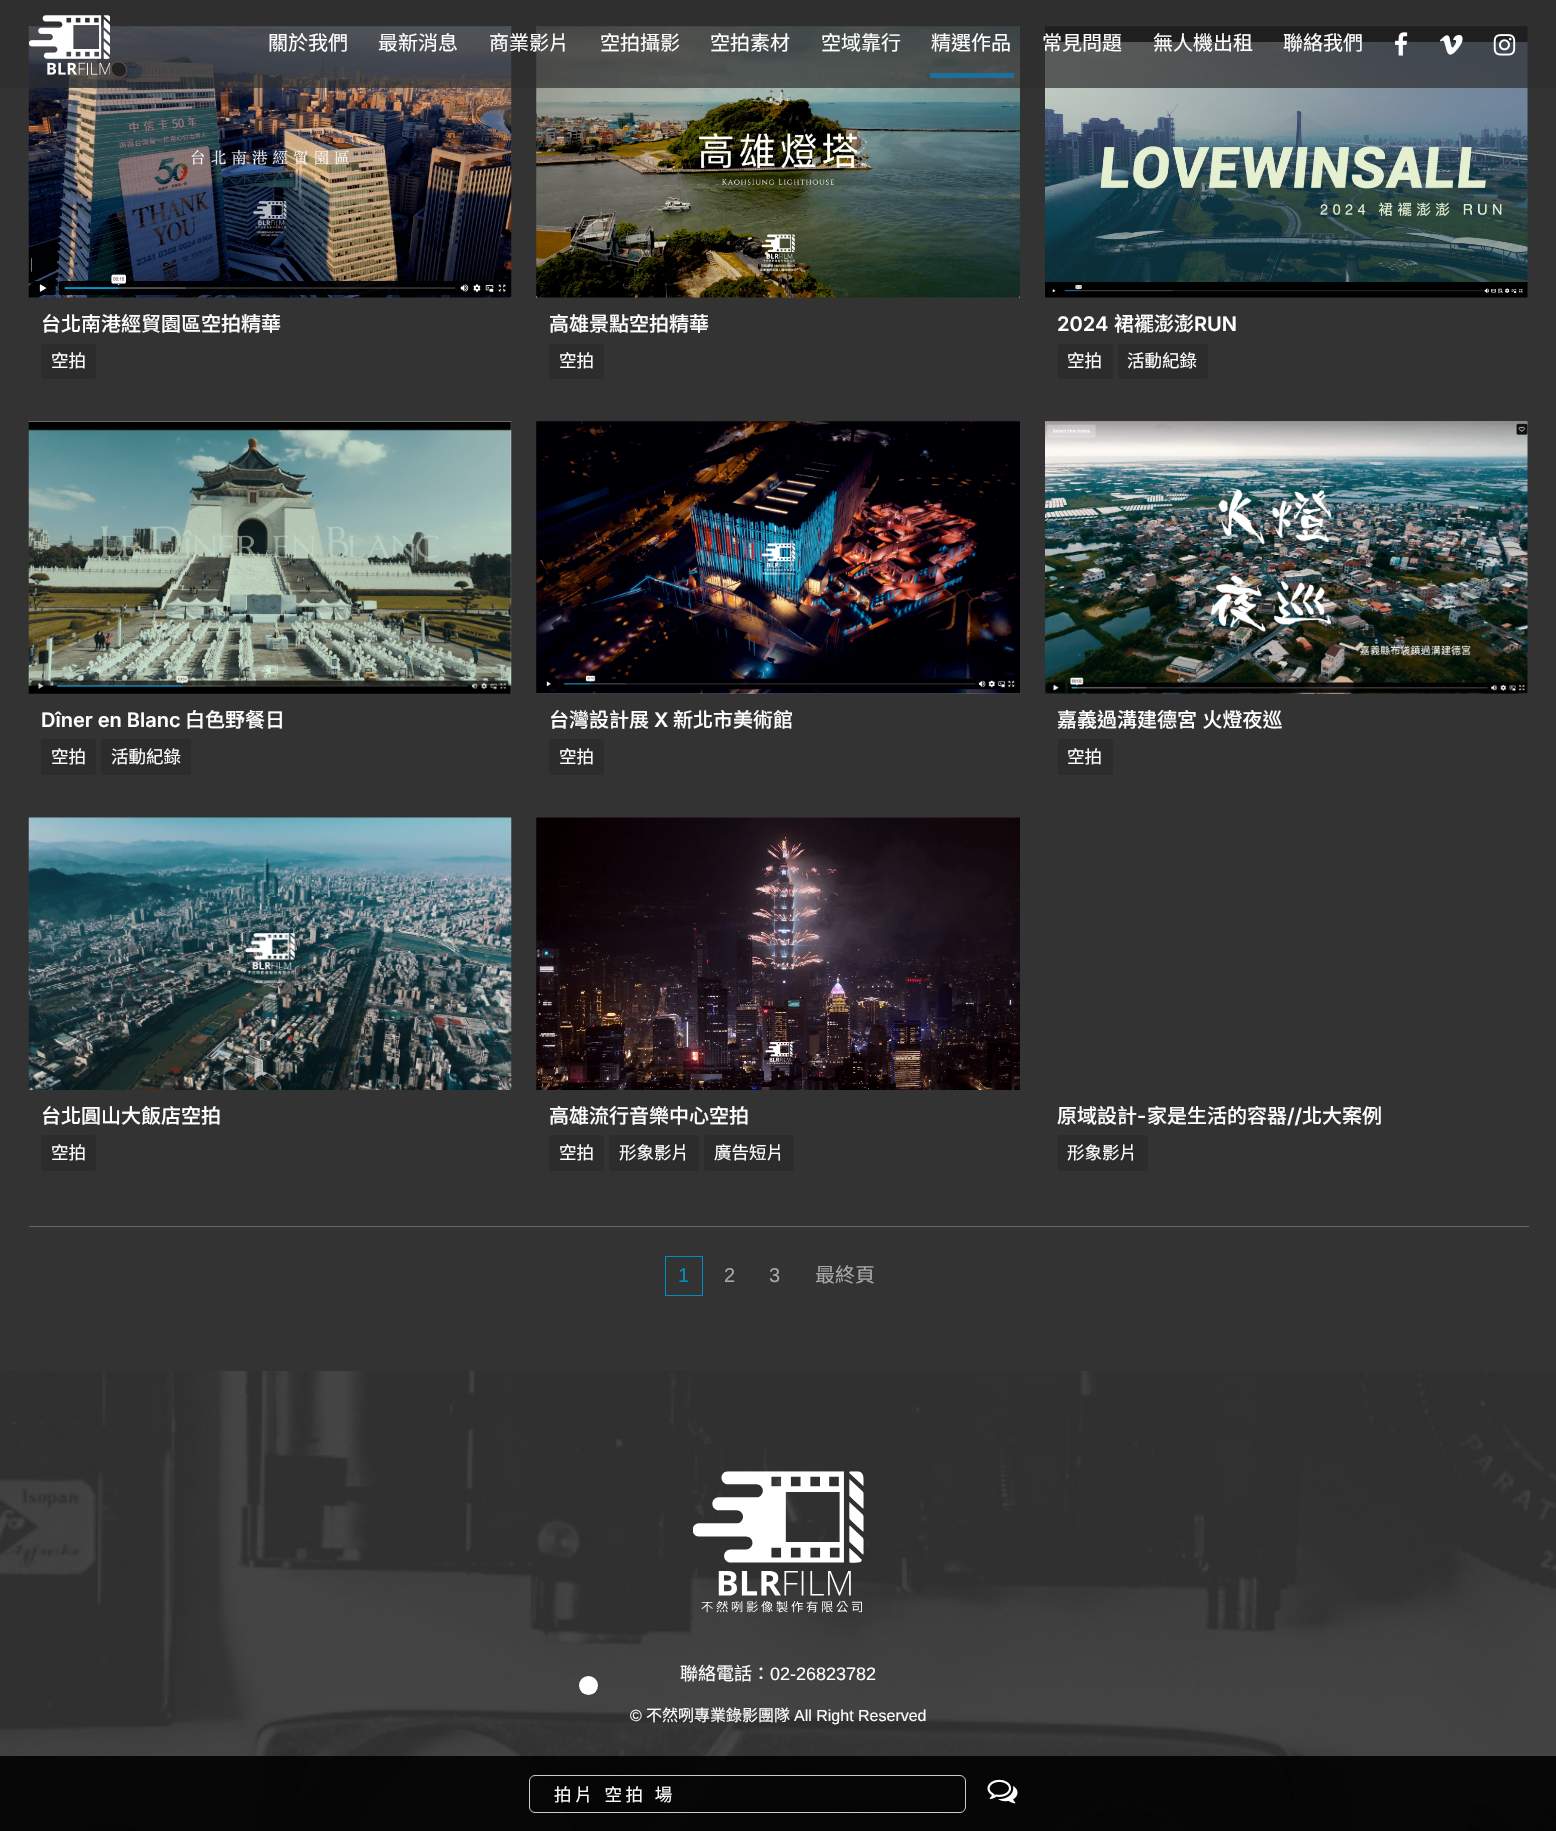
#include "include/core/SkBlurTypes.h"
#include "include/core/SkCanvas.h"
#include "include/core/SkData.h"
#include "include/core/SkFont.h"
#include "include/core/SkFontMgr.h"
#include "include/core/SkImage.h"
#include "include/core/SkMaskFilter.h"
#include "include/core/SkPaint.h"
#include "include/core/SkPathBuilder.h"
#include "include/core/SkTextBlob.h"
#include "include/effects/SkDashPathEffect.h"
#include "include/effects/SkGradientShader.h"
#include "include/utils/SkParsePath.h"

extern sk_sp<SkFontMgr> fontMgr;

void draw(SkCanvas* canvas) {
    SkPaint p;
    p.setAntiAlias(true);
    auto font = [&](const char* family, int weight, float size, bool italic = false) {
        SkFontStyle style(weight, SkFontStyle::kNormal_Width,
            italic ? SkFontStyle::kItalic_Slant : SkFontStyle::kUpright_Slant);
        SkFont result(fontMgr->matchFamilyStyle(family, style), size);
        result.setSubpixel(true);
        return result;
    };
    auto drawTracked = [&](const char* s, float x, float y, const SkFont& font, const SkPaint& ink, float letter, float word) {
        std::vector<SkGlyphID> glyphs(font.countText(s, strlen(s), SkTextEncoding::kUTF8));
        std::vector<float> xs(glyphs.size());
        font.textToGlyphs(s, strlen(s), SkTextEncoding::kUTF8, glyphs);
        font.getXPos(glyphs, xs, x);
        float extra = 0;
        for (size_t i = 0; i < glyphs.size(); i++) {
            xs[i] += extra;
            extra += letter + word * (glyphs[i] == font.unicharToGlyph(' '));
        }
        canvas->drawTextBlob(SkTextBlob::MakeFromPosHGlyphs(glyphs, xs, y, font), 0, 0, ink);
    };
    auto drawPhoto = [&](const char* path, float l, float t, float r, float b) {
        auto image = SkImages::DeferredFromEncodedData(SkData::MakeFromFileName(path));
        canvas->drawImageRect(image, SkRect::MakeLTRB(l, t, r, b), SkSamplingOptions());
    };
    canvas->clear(0xFF333333);
    drawPhoto("media/5.png", 28, 26, 512, 298);
    drawPhoto("media/6.png", 536, 26, 1020, 298);
    drawPhoto("media/7.png", 1045, 26, 1528, 298);
    p.setColor(0xB32C2C2C);
    canvas->drawRect(SkRect::MakeLTRB(0, 0, 1556, 88), p);
    drawPhoto("media/1.png", 29, 15, 110, 75);
    auto font1 = font("Noto Sans CJK TC", 400, 20);
    p.setColor(0xFFFFFFFF);
    {
        const struct { const char* s; float x, y; } items[] = {
            {"關於我們", 268, 50},
            {"最新消息", 378, 50},
            {"商業影片", 489, 50},
            {"空拍攝影", 600, 50},
            {"空拍素材", 710, 50},
            {"空域靠行", 821, 50},
            {"精選作品", 931, 50},
        };
        for (auto [s, x, y] : items) {
            canvas->drawString(s, x, y, font1, p);
        }
    }
    p.setColor(0xFF1D6F9E);
    canvas->drawRect(SkRect::MakeLTRB(930, 73, 1014, 78), p);
    p.setColor(0xFFFFFFFF);
    {
        const struct { const char* s; float x, y; } items[] = {
            {"常見問題", 1042, 50},
            {"無人機出租", 1153, 50},
            {"聯絡我們", 1283, 50},
        };
        for (auto [s, x, y] : items) {
            canvas->drawString(s, x, y, font1, p);
        }
    }
    drawPhoto("media/2.png", 1395, 32, 1408, 56);
    drawPhoto("media/3.png", 1440, 35, 1463, 55);
    drawPhoto("media/4.png", 1493, 34, 1516, 56);
    auto font2 = font("Noto Sans TC", 500, 20);
    canvas->drawString("台北南港經貿園區空拍精華", 41, 331, font2, p);
    p.setColor(0xFF2C2C2C);
    canvas->drawRoundRect(SkRect::MakeLTRB(41, 344, 96, 379), 2.5f, 2.5f, p);
    auto font3 = font("Noto Sans CJK TC", 400, 17.5f);
    p.setColor(0xFFFFFFFF);
    canvas->drawString("空拍", 51, 367, font3, p);
    canvas->drawString("高雄景點空拍精華", 549, 331, font2, p);
    p.setColor(0xFF2C2C2C);
    canvas->drawRoundRect(SkRect::MakeLTRB(549, 344, 604, 379), 2.5f, 2.5f, p);
    p.setColor(0xFFFFFFFF);
    canvas->drawString("空拍", 559, 367, font3, p);
    auto font4 = font("Inter", 600, 20);
    canvas->drawString("2024", 1057, 331, font4, p);
    canvas->drawString("裙襬澎澎", 1114, 331, font2, p);
    canvas->drawString("RUN", 1194, 331, font4, p);
    p.setColor(0xFF2C2C2C);
    canvas->drawRoundRect(SkRect::MakeLTRB(1058, 344, 1113, 379), 2.5f, 2.5f, p);
    p.setColor(0xFFFFFFFF);
    canvas->drawString("空拍", 1067, 367, font3, p);
    p.setColor(0xFF2C2C2C);
    canvas->drawRoundRect(SkRect::MakeLTRB(1118, 344, 1208, 379), 2.5f, 2.5f, p);
    p.setColor(0xFFFFFFFF);
    canvas->drawString("活動紀錄", 1127, 367, font3, p);
    drawPhoto("media/8.png", 28, 421, 512, 694);
    canvas->drawString("Dîner en Blanc", 41, 727, font4, p);
    canvas->drawString("白色野餐日", 185, 727, font2, p);
    p.setColor(0xFF2C2C2C);
    canvas->drawRoundRect(SkRect::MakeLTRB(41, 739, 96, 775), 2.5f, 2.5f, p);
    p.setColor(0xFFFFFFFF);
    canvas->drawString("空拍", 51, 763, font3, p);
    p.setColor(0xFF2C2C2C);
    canvas->drawRoundRect(SkRect::MakeLTRB(101, 739, 191, 775), 2.5f, 2.5f, p);
    p.setColor(0xFFFFFFFF);
    canvas->drawString("活動紀錄", 111, 763, font3, p);
    drawPhoto("media/9.png", 536, 421, 1020, 694);
    canvas->drawString("台灣設計展", 549, 727, font2, p);
    canvas->drawString("X", 654, 727, font4, p);
    canvas->drawString("新北市美術館", 673, 727, font2, p);
    p.setColor(0xFF2C2C2C);
    canvas->drawRoundRect(SkRect::MakeLTRB(549, 739, 604, 775), 2.5f, 2.5f, p);
    p.setColor(0xFFFFFFFF);
    canvas->drawString("空拍", 559, 763, font3, p);
    drawPhoto("media/10.png", 1045, 421, 1528, 694);
    drawTracked("嘉義過溝建德宮 火燈夜巡", 1057, 727, font2, p, 0, 1);
    p.setColor(0xFF2C2C2C);
    canvas->drawRoundRect(SkRect::MakeLTRB(1058, 739, 1113, 775), 2.5f, 2.5f, p);
    p.setColor(0xFFFFFFFF);
    canvas->drawString("空拍", 1067, 763, font3, p);
    drawPhoto("media/11.png", 28, 817, 512, 1090);
    canvas->drawString("台北圓山大飯店空拍", 41, 1123, font2, p);
    p.setColor(0xFF2C2C2C);
    canvas->drawRoundRect(SkRect::MakeLTRB(41, 1135, 96, 1171), 2.5f, 2.5f, p);
    p.setColor(0xFFFFFFFF);
    canvas->drawString("空拍", 51, 1159, font3, p);
    drawPhoto("media/12.png", 536, 817, 1020, 1090);
    canvas->drawString("高雄流行音樂中心空拍", 549, 1123, font2, p);
    p.setColor(0xFF2C2C2C);
    canvas->drawRoundRect(SkRect::MakeLTRB(549, 1135, 604, 1171), 2.5f, 2.5f, p);
    p.setColor(0xFFFFFFFF);
    canvas->drawString("空拍", 559, 1159, font3, p);
    p.setColor(0xFF2C2C2C);
    canvas->drawRoundRect(SkRect::MakeLTRB(609, 1135, 699, 1171), 2.5f, 2.5f, p);
    p.setColor(0xFFFFFFFF);
    canvas->drawString("形象影片", 619, 1159, font3, p);
    p.setColor(0xFF2C2C2C);
    canvas->drawRoundRect(SkRect::MakeLTRB(704, 1135, 794, 1171), 2.5f, 2.5f, p);
    p.setColor(0xFFFFFFFF);
    canvas->drawString("廣告短片", 714, 1159, font3, p);
    canvas->drawString("原域設計", 1057, 1123, font2, p);
    canvas->drawString("-", 1137, 1123, font4, p);
    canvas->drawString("家是生活的容器", 1147, 1123, font2, p);
    canvas->drawString("//", 1287, 1123, font4, p);
    canvas->drawString("北大案例", 1302, 1123, font2, p);
    p.setColor(0xFF2C2C2C);
    canvas->drawRoundRect(SkRect::MakeLTRB(1058, 1135, 1148, 1171), 2.5f, 2.5f, p);
    p.setColor(0xFFFFFFFF);
    canvas->drawString("形象影片", 1067, 1159, font3, p);
    p.setColor(0xFF666666);
    canvas->drawRect(SkRect::MakeLTRB(29, 1226, 1529, 1227), p);
    p.setStyle(SkPaint::kStroke_Style);
    p.setStrokeWidth(1);
    p.setColor(0xFF008FBC);
    canvas->drawRect(SkRect::MakeLTRB(665.5f, 1256.5f, 702.5f, 1295.5f), p);
    auto font5 = font("Liberation Sans", 400, 20);
    p.setStyle(SkPaint::kFill_Style);
    canvas->drawString("1", 678, 1282, font5, p);
    p.setColor(0xFFA8A8A8);
    canvas->drawString("2", 724, 1282, font5, p);
    canvas->drawString("3", 769, 1282, font5, p);
    canvas->drawString("最終頁", 815, 1282, font1, p);
    drawPhoto("media/13.png", 0, 1371, 1556, 1831);
    drawPhoto("media/14.png", 693, 1471, 864, 1613);
    auto font6 = font("Noto Sans CJK TC", 400, 18);
    p.setColor(0xFFFFFFFF);
    canvas->drawString("聯絡電話：", 680, 1680, font6, p);
    auto font7 = font("Liberation Sans", 400, 18);
    canvas->drawString("02-26823782", 770, 1680, font7, p);
    auto font8 = font("Liberation Sans", 400, 16);
    canvas->drawString("©", 630, 1721, font8, p);
    auto font9 = font("Noto Sans CJK TC", 400, 16);
    canvas->drawString("不然咧專業錄影團隊", 646, 1721, font9, p);
    canvas->drawString("All Right Reserved", 794, 1721, font8, p);
    p.setColor(0xE6000000);
    canvas->drawRect(SkRect::MakeLTRB(0, 1756, 1556, 1831), p);
    p.setColor(0xFFFFFFFF);
    canvas->drawCircle(588.5f, 1685.5f, 9.5f, p);
    p.setStyle(SkPaint::kStroke_Style);
    p.setColor(0xFFCCCCCC);
    canvas->drawRoundRect(SkRect::MakeLTRB(529.5f, 1775.5f, 965.5f, 1812.5f), 5.5f, 5.5f, p);
    p.setStyle(SkPaint::kFill_Style);
    p.setColor(0xFFFFFFFF);
    drawTracked("拍片 空拍 場", 554, 1801, font3, p, 3.5f, 1);
    drawPhoto("media/15.png", 987, 1779, 1018, 1804);
}
